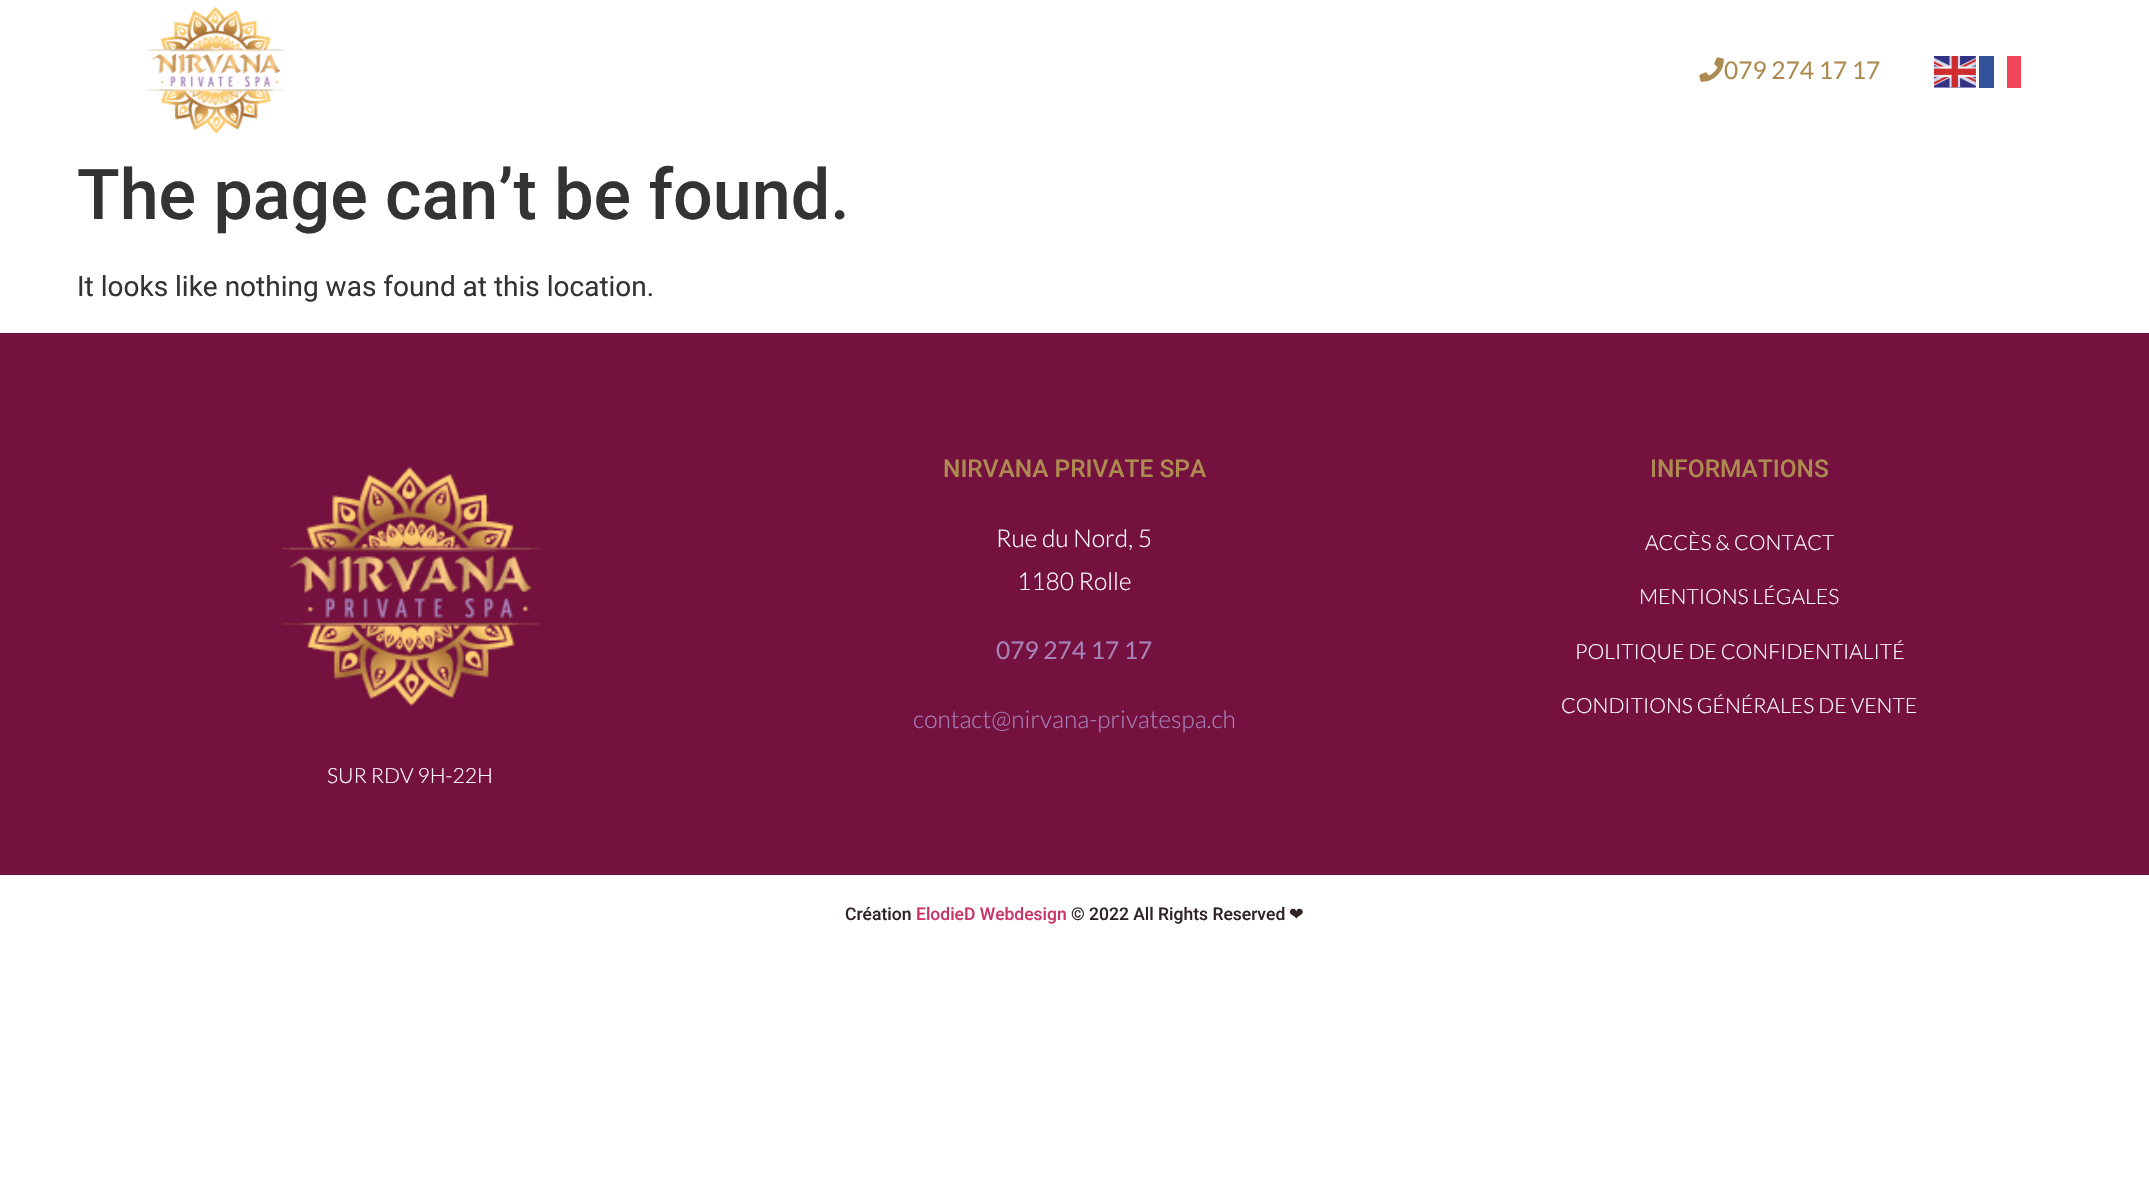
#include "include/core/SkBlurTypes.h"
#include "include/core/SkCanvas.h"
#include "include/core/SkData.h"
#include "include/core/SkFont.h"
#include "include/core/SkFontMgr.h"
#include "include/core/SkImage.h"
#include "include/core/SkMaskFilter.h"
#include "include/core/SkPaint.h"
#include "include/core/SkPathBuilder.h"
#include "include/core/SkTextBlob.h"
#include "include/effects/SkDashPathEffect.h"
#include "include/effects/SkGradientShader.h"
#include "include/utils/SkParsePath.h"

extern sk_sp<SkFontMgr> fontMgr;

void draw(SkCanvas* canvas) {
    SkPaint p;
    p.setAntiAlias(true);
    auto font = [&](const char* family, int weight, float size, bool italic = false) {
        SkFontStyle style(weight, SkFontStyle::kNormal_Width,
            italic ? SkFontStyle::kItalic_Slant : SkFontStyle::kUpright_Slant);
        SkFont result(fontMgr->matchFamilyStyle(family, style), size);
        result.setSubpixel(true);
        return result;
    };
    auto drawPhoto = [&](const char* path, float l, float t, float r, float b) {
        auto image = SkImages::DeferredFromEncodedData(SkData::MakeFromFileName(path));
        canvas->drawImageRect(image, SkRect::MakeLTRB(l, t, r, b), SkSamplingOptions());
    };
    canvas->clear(0xFFFFFFFF);
    drawPhoto("media/1.png", 147, 6, 285, 134);
    drawPhoto("media/2.png", 1699, 57, 1724, 82);
    auto font1 = font("Lato", 400, 24.5f);
    p.setColor(0xFFAD8B50);
    canvas->drawString("079 274 17 17", 1724, 79, font1, p);
    drawPhoto("media/3.png", 1934, 56, 1976, 88);
    p.setColor(0xFF335199);
    canvas->drawRect(SkRect::MakeLTRB(1979, 56, 1994, 88), p);
    p.setColor(0xFFF54659);
    canvas->drawRect(SkRect::MakeLTRB(2007, 56, 2021, 88), p);
    auto font2 = font("Roboto", 500, 70);
    p.setColor(0xFF333333);
    canvas->drawString("The page can’t be found.", 77, 219, font2, p);
    auto font3 = font("Roboto", 400, 28);
    canvas->drawString("It looks like nothing was found at this location.", 77, 296, font3, p);
    p.setColor(0xFF74113E);
    canvas->drawRect(SkRect::MakeLTRB(0, 333, 2149, 875), p);
    auto font4 = font("Roboto", 500, 24.5f);
    p.setColor(0xFFAD8B50);
    canvas->drawString("NIRVANA PRIVATE SPA", 943, 477, font4, p);
    auto font5 = font("Lato", 300, 24.5f);
    p.setColor(0xFFFFFFFF);
    canvas->drawString("Rue du Nord, 5", 996, 547, font5, p);
    canvas->drawString("1180 Rolle", 1017, 590, font5, p);
    p.setColor(0xFFA783BA);
    canvas->drawString("079 274 17 17", 996, 659, font1, p);
    canvas->drawString("contact@nirvana-privatespa.ch", 913, 728, font5, p);
    p.setColor(0xFFAD8B50);
    canvas->drawString("INFORMATIONS", 1650, 477, font4, p);
    auto font6 = font("Lato", 300, 21);
    p.setColor(0xFFFFFFFF);
    {
        const struct { const char* s; float x, y; } items[] = {
            {"ACCÈS & CONTACT", 1645, 550},
            {"MENTIONS LÉGALES", 1639, 604},
            {"POLITIQUE DE CONFIDENTIALITÉ", 1575, 659},
            {"CONDITIONS GÉNÉRALES DE VENTE", 1561, 713},
        };
        for (auto [s, x, y] : items) {
            canvas->drawString(s, x, y, font6, p);
        }
    }
    drawPhoto("media/4.png", 281, 467, 540, 706);
    canvas->drawString("SUR RDV 9H-22H", 327, 783, font6, p);
    auto font7 = font("Roboto", 500, 17.5f);
    p.setColor(0xFF2F2424);
    canvas->drawString("Création", 845, 920, font7, p);
    p.setColor(0xFFCC3366);
    canvas->drawString("ElodieD Webdesign", 916, 920, font7, p);
    p.setColor(0xFF2F2424);
    canvas->drawString("© 2022 All Rights Reserved", 1071, 920, font7, p);
    auto font8 = font("DejaVu Sans", 400, 17.5f);
    canvas->drawString("❤", 1289, 920, font8, p);
}
